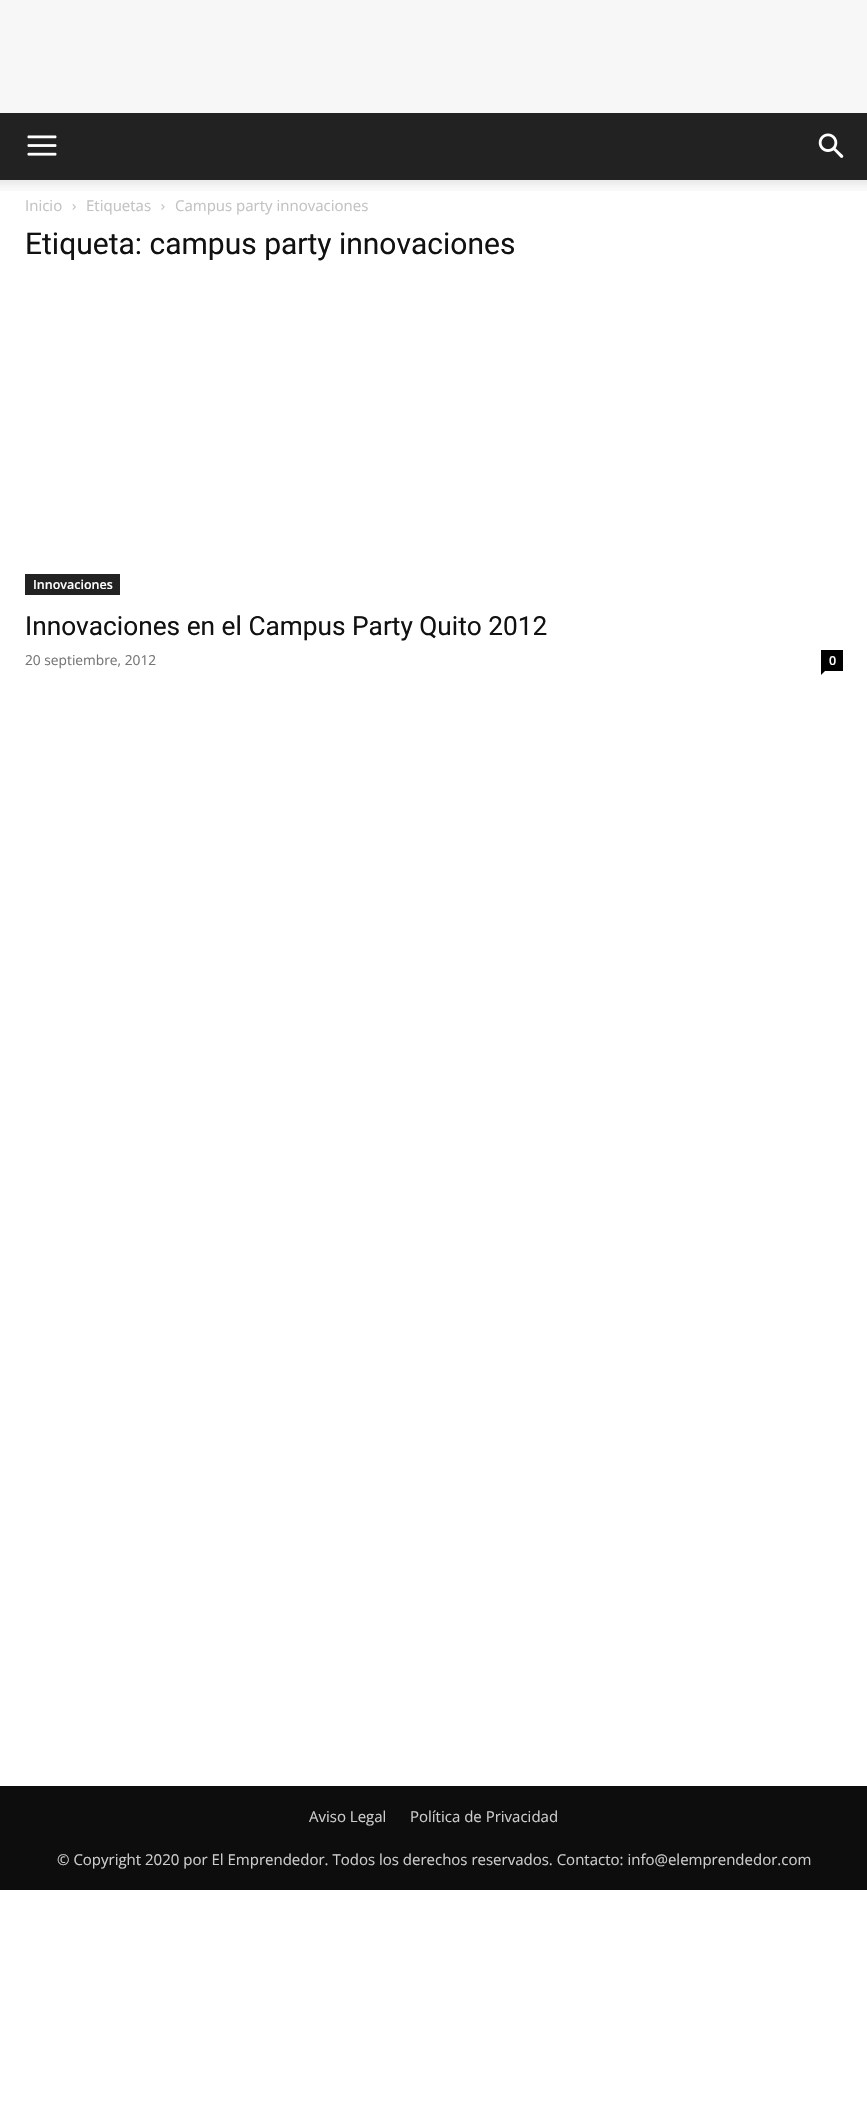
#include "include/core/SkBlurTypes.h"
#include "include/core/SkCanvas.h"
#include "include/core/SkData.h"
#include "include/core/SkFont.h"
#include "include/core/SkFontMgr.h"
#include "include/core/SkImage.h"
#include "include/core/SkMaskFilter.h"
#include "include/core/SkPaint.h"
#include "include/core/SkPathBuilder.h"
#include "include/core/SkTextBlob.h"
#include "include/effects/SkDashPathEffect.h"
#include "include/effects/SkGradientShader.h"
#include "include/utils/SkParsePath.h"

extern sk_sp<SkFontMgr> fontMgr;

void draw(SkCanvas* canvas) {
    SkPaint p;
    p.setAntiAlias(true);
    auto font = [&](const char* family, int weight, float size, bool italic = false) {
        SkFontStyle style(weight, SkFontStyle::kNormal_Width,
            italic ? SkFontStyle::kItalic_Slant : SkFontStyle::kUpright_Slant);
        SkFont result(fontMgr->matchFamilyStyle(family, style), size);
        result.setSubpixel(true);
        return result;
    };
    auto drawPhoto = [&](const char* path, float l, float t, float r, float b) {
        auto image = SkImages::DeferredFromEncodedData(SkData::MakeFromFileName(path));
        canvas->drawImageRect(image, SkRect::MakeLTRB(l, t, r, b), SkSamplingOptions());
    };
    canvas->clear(0xFFFFFFFF);
    p.setColor(0xFFF7F7F7);
    canvas->drawRect(SkRect::MakeLTRB(0, 0, 867, 113), p);
    p.setColor(0xFF222222);
    canvas->drawRect(SkRect::MakeLTRB(0, 113, 867, 180), p);
    drawPhoto("media/1.png", 27, 135, 57, 156);
    drawPhoto("media/2.png", 818, 133, 844, 158);
    drawPhoto("media/3.png", 0, 180, 867, 191);
    auto font1 = font("Open Sans", 400, 15);
    p.setColor(0xFFC3C3C3);
    canvas->drawString("Inicio", 25, 211, font1, p);
    drawPhoto("media/4.png", 72, 204, 76, 210);
    canvas->drawString("Etiquetas", 86, 211, font1, p);
    drawPhoto("media/5.png", 161, 204, 165, 210);
    canvas->drawString("Campus party innovaciones", 175, 211, font1, p);
    auto font2 = font("Roboto", 400, 30);
    p.setColor(0xFF111111);
    canvas->drawString("Etiqueta: campus party innovaciones", 25, 254, font2, p);
    p.setColor(0xFF222222);
    canvas->drawRect(SkRect::MakeLTRB(25, 574, 120, 595), p);
    auto font3 = font("Open Sans", 600, 12.5f);
    p.setColor(0xFFFFFFFF);
    canvas->drawString("Innovaciones", 33, 589, font3, p);
    auto font4 = font("Roboto", 400, 26.25f);
    p.setColor(0xFF111111);
    canvas->drawString("Innovaciones en el Campus Party Quito 2012", 25, 635, font4, p);
    auto font5 = font("Open Sans", 400, 13.75f);
    p.setColor(0xFF767676);
    canvas->drawString("20 septiembre, 2012", 25, 665, font5, p);
    p.setColor(0xFF000000);
    canvas->drawRect(SkRect::MakeLTRB(821, 650, 843, 671), p);
    p.setColor(0xFFFFFFFF);
    canvas->drawString("0", 829, 665, font3, p);
    p.setColor(0xFF000000);
    canvas->drawPath(SkPathBuilder().moveTo(821, 671).lineTo(825, 671).lineTo(821, 675).close().detach(), p);
    p.setColor(0xFF0D0D0D);
    canvas->drawRect(SkRect::MakeLTRB(0, 1786, 867, 1890), p);
    p.setColor(0xFFCCCCCC);
    {
        const struct { const char* s; float x, y; } items[] = {
            {"Aviso Legal", 309, 1822},
            {"Política de Privacidad", 410, 1822},
            {"© Copyright 2020 por El Emprendedor. Todos los derechos reservados. Contacto: info@elemprendedor.com", 57, 1865},
        };
        for (auto [s, x, y] : items) {
            canvas->drawString(s, x, y, font1, p);
        }
    }
}
